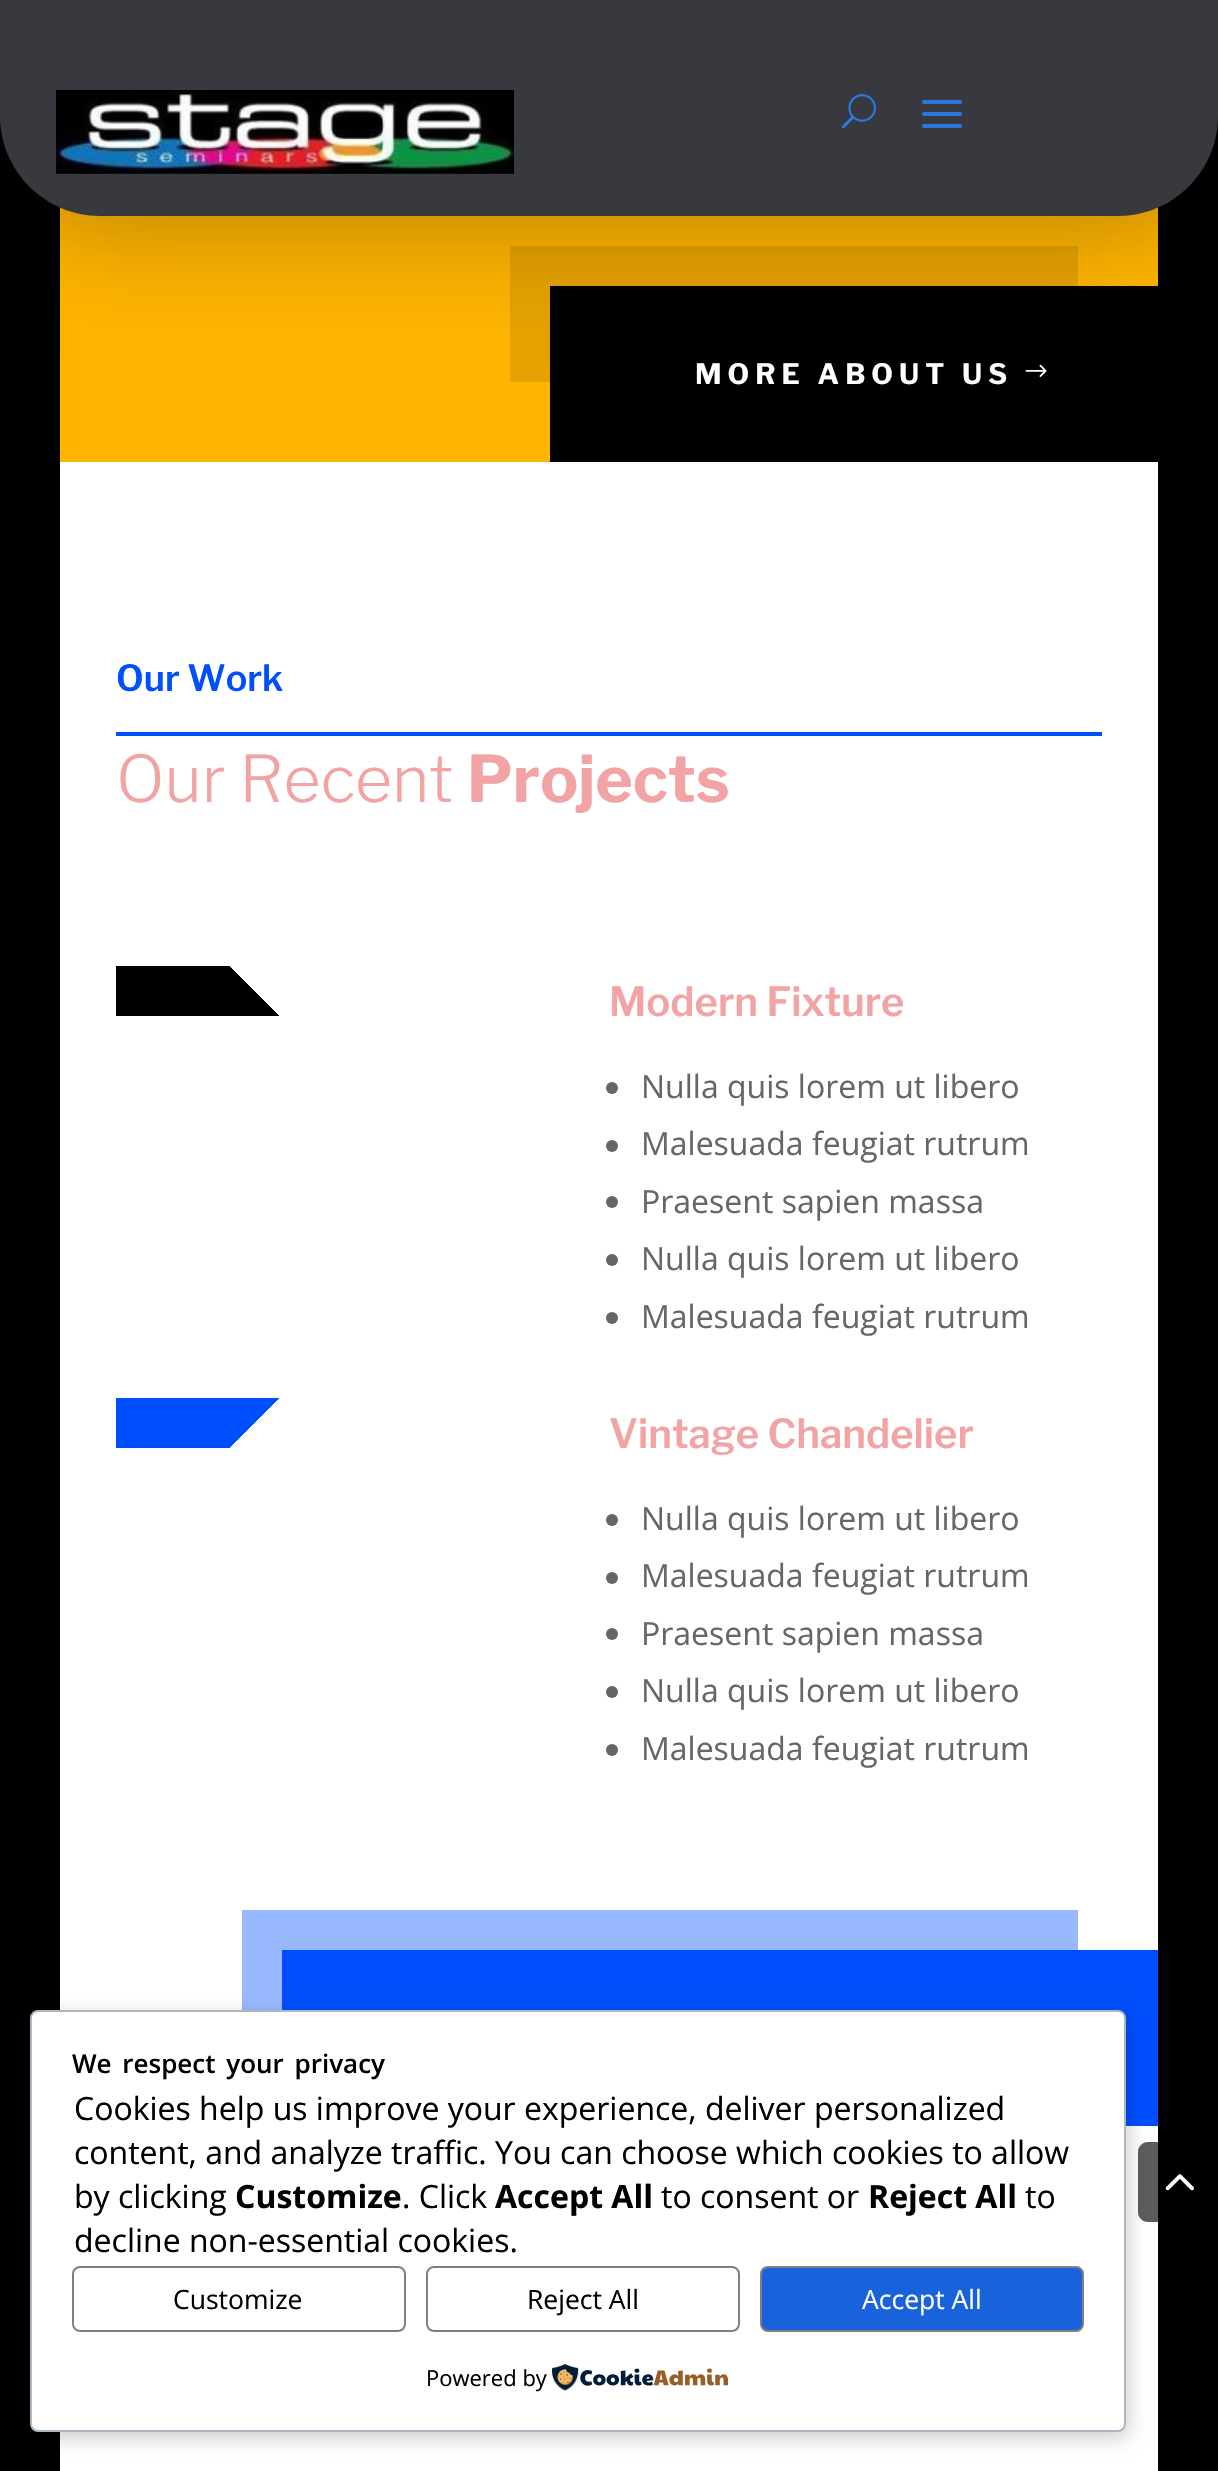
#include "include/core/SkBlurTypes.h"
#include "include/core/SkCanvas.h"
#include "include/core/SkData.h"
#include "include/core/SkFont.h"
#include "include/core/SkFontMgr.h"
#include "include/core/SkImage.h"
#include "include/core/SkMaskFilter.h"
#include "include/core/SkPaint.h"
#include "include/core/SkPathBuilder.h"
#include "include/core/SkTextBlob.h"
#include "include/effects/SkDashPathEffect.h"
#include "include/effects/SkGradientShader.h"
#include "include/utils/SkParsePath.h"

extern sk_sp<SkFontMgr> fontMgr;

void draw(SkCanvas* canvas) {
    SkPaint p;
    p.setAntiAlias(true);
    auto font = [&](const char* family, int weight, float size, bool italic = false) {
        SkFontStyle style(weight, SkFontStyle::kNormal_Width,
            italic ? SkFontStyle::kItalic_Slant : SkFontStyle::kUpright_Slant);
        SkFont result(fontMgr->matchFamilyStyle(family, style), size);
        result.setSubpixel(true);
        return result;
    };
    auto drawTracked = [&](const char* s, float x, float y, const SkFont& font, const SkPaint& ink, float letter, float word) {
        std::vector<SkGlyphID> glyphs(font.countText(s, strlen(s), SkTextEncoding::kUTF8));
        std::vector<float> xs(glyphs.size());
        font.textToGlyphs(s, strlen(s), SkTextEncoding::kUTF8, glyphs);
        font.getXPos(glyphs, xs, x);
        float extra = 0;
        for (size_t i = 0; i < glyphs.size(); i++) {
            xs[i] += extra;
            extra += letter + word * (glyphs[i] == font.unicharToGlyph(' '));
        }
        canvas->drawTextBlob(SkTextBlob::MakeFromPosHGlyphs(glyphs, xs, y, font), 0, 0, ink);
    };
    auto drawPhoto = [&](const char* path, float l, float t, float r, float b) {
        auto image = SkImages::DeferredFromEncodedData(SkData::MakeFromFileName(path));
        canvas->drawImageRect(image, SkRect::MakeLTRB(l, t, r, b), SkSamplingOptions());
    };
    canvas->clear(0xFF000000);
    p.setColor(0xFFFFB400);
    canvas->drawRect(SkRect::MakeLTRB(60, 207, 1158, 462), p);
    p.setColor(0xFFE6A200);
    canvas->drawPath(SkPathBuilder().moveTo(510, 246).lineTo(510, 382).lineTo(550, 382).lineTo(550, 286).lineTo(1078, 286).lineTo(1078, 246).close().detach(), p);
    p.setColor(0xFF000000);
    canvas->drawRect(SkRect::MakeLTRB(550, 286, 1158, 462), p);
    drawPhoto("media/4.png", 1025, 364, 1047, 377);
    p.setColor(0x4D000000);
    p.setMaskFilter(SkMaskFilter::MakeBlur(kNormal_SkBlurStyle, 60));
    canvas->drawRoundRect(SkRect::MakeLTRB(0, 4, 1218, 220), 100, 100, p);
    p.setMaskFilter(nullptr);
    p.setColor(0xFF38383F);
    canvas->drawPath(SkPathBuilder().moveTo(0, 0).lineTo(1218, 0).lineTo(1218, 116).cubicTo(1218, 171, 1173, 216, 1118, 216).lineTo(100, 216).cubicTo(45, 216, 0, 171, 0, 116).close().detach(), p);
    drawPhoto("media/1.png", 56, 90, 514, 174);
    drawPhoto("media/2.png", 841, 94, 876, 129);
    drawPhoto("media/3.png", 922, 99, 962, 128);
    p.setColor(0xFFFFFFFF);
    canvas->drawRect(SkRect::MakeLTRB(60, 462, 1158, 2471), p);
    auto font1 = font("Libre Franklin", 700, 28);
    drawTracked("MORE ABOUT US", 695, 384, font1, p, 6, 0);
    p.setColor(0xFF004FFE);
    canvas->drawRect(SkRect::MakeLTRB(116, 732, 1102, 736), p);
    auto font2 = font("Libre Franklin", 600, 36);
    canvas->drawString("Our Work", 116, 691, font2, p);
    auto font3 = font("Libre Franklin", 300, 64);
    p.setColor(0xFFF2A4A4);
    canvas->drawString("Our Recent", 116, 802, font3, p);
    auto font4 = font("Libre Franklin", 700, 64);
    canvas->drawString("Projects", 467, 802, font4, p);
    {
        const SkColor colors[] = {0xFF000000, 0xFFFFFFFF};
        const float stops[] = {0.3f, 0.3f};
        const SkPoint ends[] = {{227, 1127}, {499, 855}};
        p.setShader(SkGradientShader::MakeLinear(ends, colors, stops, 2, SkTileMode::kClamp));
        p.setAlpha(255);
    }
    canvas->drawRect(SkRect::MakeLTRB(116, 966, 279, 1016), p);
    auto font5 = font("Libre Franklin", 600, 40);
    p.setShader(nullptr);
    p.setColor(0xFFF2A4A4);
    canvas->drawString("Modern Fixture", 609, 1016, font5, p);
    p.setColor(0xFF666666);
    canvas->drawCircle(612, 1088, 6, p);
    auto font6 = font("Open Sans", 400, 32);
    canvas->drawString("Nulla quis lorem ut libero", 641, 1098, font6, p);
    canvas->drawCircle(612, 1146, 6, p);
    canvas->drawString("Malesuada feugiat rutrum", 641, 1155, font6, p);
    canvas->drawCircle(612, 1202, 6, p);
    canvas->drawString("Praesent sapien massa", 641, 1213, font6, p);
    canvas->drawCircle(612, 1260, 6, p);
    canvas->drawString("Nulla quis lorem ut libero", 641, 1270, font6, p);
    canvas->drawCircle(612, 1318, 6, p);
    canvas->drawString("Malesuada feugiat rutrum", 641, 1328, font6, p);
    {
        const SkColor colors[] = {0xFF004FFE, 0xFFFFFFFF};
        const float stops[] = {0.3f, 0.3f};
        const SkPoint ends[] = {{227, 1287}, {499, 1559}};
        p.setShader(SkGradientShader::MakeLinear(ends, colors, stops, 2, SkTileMode::kClamp));
        p.setAlpha(255);
    }
    canvas->drawRect(SkRect::MakeLTRB(116, 1398, 279, 1448), p);
    p.setShader(nullptr);
    p.setColor(0xFFF2A4A4);
    canvas->drawString("Vintage Chandelier", 609, 1448, font5, p);
    p.setColor(0xFF666666);
    canvas->drawCircle(612, 1520, 6, p);
    canvas->drawString("Nulla quis lorem ut libero", 641, 1530, font6, p);
    canvas->drawCircle(612, 1578, 6, p);
    canvas->drawString("Malesuada feugiat rutrum", 641, 1587, font6, p);
    canvas->drawCircle(612, 1634, 6, p);
    canvas->drawString("Praesent sapien massa", 641, 1645, font6, p);
    canvas->drawCircle(612, 1692, 6, p);
    canvas->drawString("Nulla quis lorem ut libero", 641, 1702, font6, p);
    canvas->drawCircle(612, 1750, 6, p);
    canvas->drawString("Malesuada feugiat rutrum", 641, 1760, font6, p);
    p.setColor(0xFF99B9FF);
    canvas->drawPath(SkPathBuilder().moveTo(242, 1910).lineTo(242, 2046).lineTo(282, 2046).lineTo(282, 1950).lineTo(1078, 1950).lineTo(1078, 1910).close().detach(), p);
    p.setColor(0xFF004FFE);
    canvas->drawRect(SkRect::MakeLTRB(282, 1950, 1158, 2126), p);
    p.setColor(0x66000000);
    canvas->drawPath(SkPathBuilder().moveTo(1148, 2142).lineTo(1218, 2142).lineTo(1218, 2222).lineTo(1148, 2222).cubicTo(1142.5f, 2222, 1138, 2217.5f, 1138, 2212).lineTo(1138, 2152).cubicTo(1138, 2146.5f, 1142.5f, 2142, 1148, 2142).close().detach(), p);
    drawPhoto("media/5.png", 1165, 2174, 1194, 2191);
    p.setColor(0x33000000);
    p.setMaskFilter(SkMaskFilter::MakeBlur(kNormal_SkBlurStyle, 10));
    canvas->drawRoundRect(SkRect::MakeLTRB(32, 2016, 1128, 2438), 8, 8, p);
    p.setMaskFilter(nullptr);
    p.setColor(0xFFFFFFFF);
    canvas->drawRoundRect(SkRect::MakeLTRB(31, 2011, 1125, 2431), 7, 7, p);
    p.setStyle(SkPaint::kStroke_Style);
    p.setStrokeWidth(2);
    p.setColor(0xFFABB8C3);
    canvas->drawRoundRect(SkRect::MakeLTRB(31, 2011, 1125, 2431), 7, 7, p);
    auto font7 = font("Open Sans", 600, 26);
    p.setStyle(SkPaint::kFill_Style);
    p.setColor(0xFF000000);
    drawTracked("We respect your privacy", 72, 2073, font7, p, 0, 4);
    {
        const struct { const char* s; float x, y; } items[] = {
            {"Cookies help us improve your experience, deliver personalized", 74, 2120},
            {"content, and analyze traffic. You can choose which cookies to allow", 74, 2164},
            {"by clicking", 74, 2208},
        };
        for (auto [s, x, y] : items) {
            canvas->drawString(s, x, y, font6, p);
        }
    }
    auto font8 = font("Open Sans", 700, 32);
    canvas->drawString("Customize", 235, 2208, font8, p);
    canvas->drawString(". Click", 402, 2208, font6, p);
    canvas->drawString("Accept All", 495, 2208, font8, p);
    canvas->drawString("to consent or", 661, 2208, font6, p);
    canvas->drawString("Reject All", 868, 2208, font8, p);
    canvas->drawString("to", 1025, 2208, font6, p);
    canvas->drawString("decline non-essential cookies.", 74, 2252, font6, p);
    p.setStyle(SkPaint::kStroke_Style);
    p.setColor(0xFF808080);
    canvas->drawRoundRect(SkRect::MakeLTRB(73, 2267, 405, 2331), 7, 7, p);
    auto font9 = font("Open Sans", 400, 26.5f);
    p.setStyle(SkPaint::kFill_Style);
    p.setColor(0xFF000000);
    canvas->drawString("Customize", 173, 2309, font9, p);
    p.setStyle(SkPaint::kStroke_Style);
    p.setColor(0xFF808080);
    canvas->drawRoundRect(SkRect::MakeLTRB(427, 2267, 739, 2331), 7, 7, p);
    p.setStyle(SkPaint::kFill_Style);
    p.setColor(0xFF000000);
    canvas->drawString("Reject All", 527, 2309, font9, p);
    p.setColor(0xFF1863DC);
    canvas->drawRoundRect(SkRect::MakeLTRB(761, 2267, 1083, 2331), 7, 7, p);
    p.setStyle(SkPaint::kStroke_Style);
    p.setColor(0xFF808080);
    canvas->drawRoundRect(SkRect::MakeLTRB(761, 2267, 1083, 2331), 7, 7, p);
    p.setStyle(SkPaint::kFill_Style);
    p.setColor(0xFFFFFFFF);
    canvas->drawString("Accept All", 862, 2309, font9, p);
    auto font10 = font("Open Sans", 400, 22);
    p.setColor(0xFF000000);
    canvas->drawString("Powered by", 426, 2386, font10, p);
    drawPhoto("media/6.png", 552, 2364, 729, 2391);
    p.setColor(0x66000000);
    canvas->drawPath(SkPathBuilder().moveTo(1148, 2142).lineTo(1218, 2142).lineTo(1218, 2222).lineTo(1148, 2222).cubicTo(1142.5f, 2222, 1138, 2217.5f, 1138, 2212).lineTo(1138, 2152).cubicTo(1138, 2146.5f, 1142.5f, 2142, 1148, 2142).close().detach(), p);
    drawPhoto("media/7.png", 1165, 2174, 1194, 2191);
}
